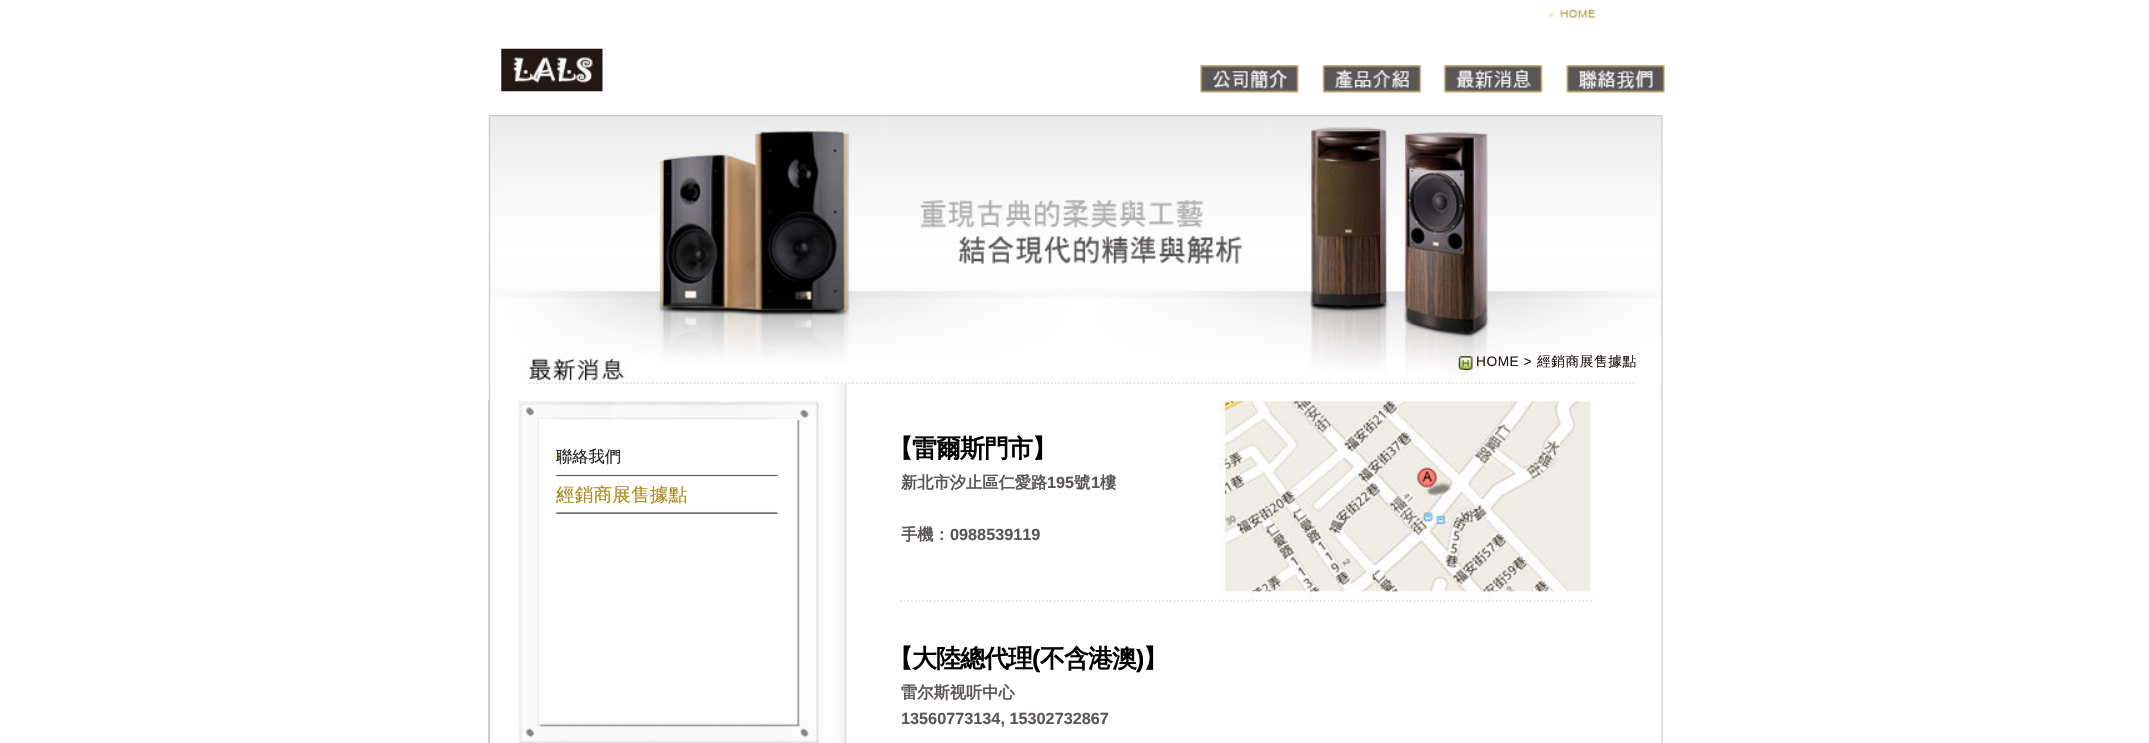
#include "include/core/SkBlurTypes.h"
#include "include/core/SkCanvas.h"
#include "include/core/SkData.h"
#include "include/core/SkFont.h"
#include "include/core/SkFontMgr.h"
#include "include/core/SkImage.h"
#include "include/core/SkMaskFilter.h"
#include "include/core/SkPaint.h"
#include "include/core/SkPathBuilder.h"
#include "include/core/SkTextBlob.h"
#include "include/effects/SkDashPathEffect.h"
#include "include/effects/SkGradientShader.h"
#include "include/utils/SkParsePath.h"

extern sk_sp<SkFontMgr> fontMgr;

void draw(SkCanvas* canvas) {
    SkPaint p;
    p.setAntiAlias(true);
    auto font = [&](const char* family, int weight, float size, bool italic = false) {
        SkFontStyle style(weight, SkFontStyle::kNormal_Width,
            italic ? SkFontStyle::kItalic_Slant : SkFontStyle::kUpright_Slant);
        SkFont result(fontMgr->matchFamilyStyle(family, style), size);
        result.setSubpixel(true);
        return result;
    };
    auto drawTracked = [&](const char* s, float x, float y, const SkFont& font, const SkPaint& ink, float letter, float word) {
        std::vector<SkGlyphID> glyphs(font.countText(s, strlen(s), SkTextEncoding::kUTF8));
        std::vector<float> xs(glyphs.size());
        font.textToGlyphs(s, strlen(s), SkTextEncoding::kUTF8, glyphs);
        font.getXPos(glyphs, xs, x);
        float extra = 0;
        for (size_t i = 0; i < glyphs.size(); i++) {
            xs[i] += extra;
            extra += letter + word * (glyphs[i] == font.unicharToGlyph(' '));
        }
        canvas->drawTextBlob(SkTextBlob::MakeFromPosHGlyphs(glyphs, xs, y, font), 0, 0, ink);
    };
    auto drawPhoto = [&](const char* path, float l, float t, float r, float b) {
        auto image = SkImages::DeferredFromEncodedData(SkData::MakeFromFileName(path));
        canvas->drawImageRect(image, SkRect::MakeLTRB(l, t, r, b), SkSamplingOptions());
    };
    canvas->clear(0xFFFFFFFF);
    drawPhoto("media/1.png", 501, 48, 603, 92);
    drawPhoto("media/2.png", 1545, 9, 1596, 20);
    drawPhoto("media/3.png", 1200, 65, 1299, 93);
    drawPhoto("media/4.png", 1322, 65, 1422, 93);
    drawPhoto("media/5.png", 1443, 65, 1543, 93);
    drawPhoto("media/6.png", 1566, 65, 1665, 93);
    drawPhoto("media/9.png", 1268, 115, 1663, 384);
    drawPhoto("media/11.png", 488, 383, 1663, 400);
    drawPhoto("media/7.png", 488, 115, 883, 384);
    drawPhoto("media/8.png", 882, 115, 1269, 384);
    drawPhoto("media/10.png", 1458, 356, 1473, 370);
    auto font1 = font("Liberation Sans", 400, 13.75f);
    p.setColor(0xFF231815);
    drawTracked("HOME >", 1476, 366, font1, p, 0.5f, 0);
    auto font2 = font("WenQuanYi Zen Hei", 500, 13.75f);
    drawTracked("經銷商展售據點", 1537, 366, font2, p, 0.5f, 0);
    p.setColor(0xFFCFCFCF);
    canvas->drawRect(SkRect::MakeLTRB(488, 400, 490, 743), p);
    p.setColor(0xFFF7F7F7);
    canvas->drawRect(SkRect::MakeLTRB(490, 400, 491, 743), p);
    drawPhoto("media/13.png", 519, 426, 819, 720);
    drawPhoto("media/12.png", 518, 401, 819, 427);
    drawPhoto("media/14.png", 556, 449, 778, 477);
    auto font3 = font("WenQuanYi Zen Hei", 500, 16.25f);
    p.setColor(0xFF1E1E1E);
    canvas->drawString("聯絡我們", 556, 462, font3, p);
    drawPhoto("media/15.png", 556, 476, 778, 514);
    auto font4 = font("WenQuanYi Zen Hei", 500, 18.75f);
    p.setColor(0xFFAE891A);
    canvas->drawString("經銷商展售據點", 556, 501, font4, p);
    drawPhoto("media/16.png", 518, 720, 819, 743);
    drawPhoto("media/17.png", 821, 400, 822, 743);
    drawPhoto("media/18.png", 821, 400, 1663, 743);
    drawPhoto("media/19.png", 900, 400, 1595, 603);
    auto font5 = font("WenQuanYi Zen Hei", 700, 25);
    p.setColor(0xFF000000);
    drawTracked("【雷爾斯門市】", 888, 457, font5, p, -1, 0);
    auto font6 = font("WenQuanYi Zen Hei", 700, 16.25f);
    p.setColor(0xFF5A5655);
    canvas->drawString("新北市汐止區仁愛路", 901, 488, font6, p);
    auto font7 = font("Liberation Sans", 700, 16.25f);
    canvas->drawString("195", 1047, 488, font7, p);
    canvas->drawString("號", 1074, 488, font6, p);
    canvas->drawString("1", 1091, 488, font7, p);
    canvas->drawString("樓", 1100, 488, font6, p);
    canvas->drawString("手機：", 901, 540, font6, p);
    canvas->drawString("0988539119", 950, 540, font7, p);
    p.setColor(0xFF000000);
    drawTracked("【大陸總代理", 888, 667, font5, p, -1, 0);
    auto font8 = font("Liberation Sans", 700, 25);
    drawTracked("(", 1032, 667, font8, p, -1, 0);
    drawTracked("不含港澳", 1040, 667, font5, p, -1, 0);
    drawTracked(")", 1136, 667, font8, p, -1, 0);
    drawTracked("】", 1143, 667, font5, p, -1, 0);
    p.setColor(0xFF5A5655);
    canvas->drawString("雷尔斯视听中心", 901, 698, font6, p);
    canvas->drawString("13560773134, 15302732867", 901, 724, font7, p);
}
